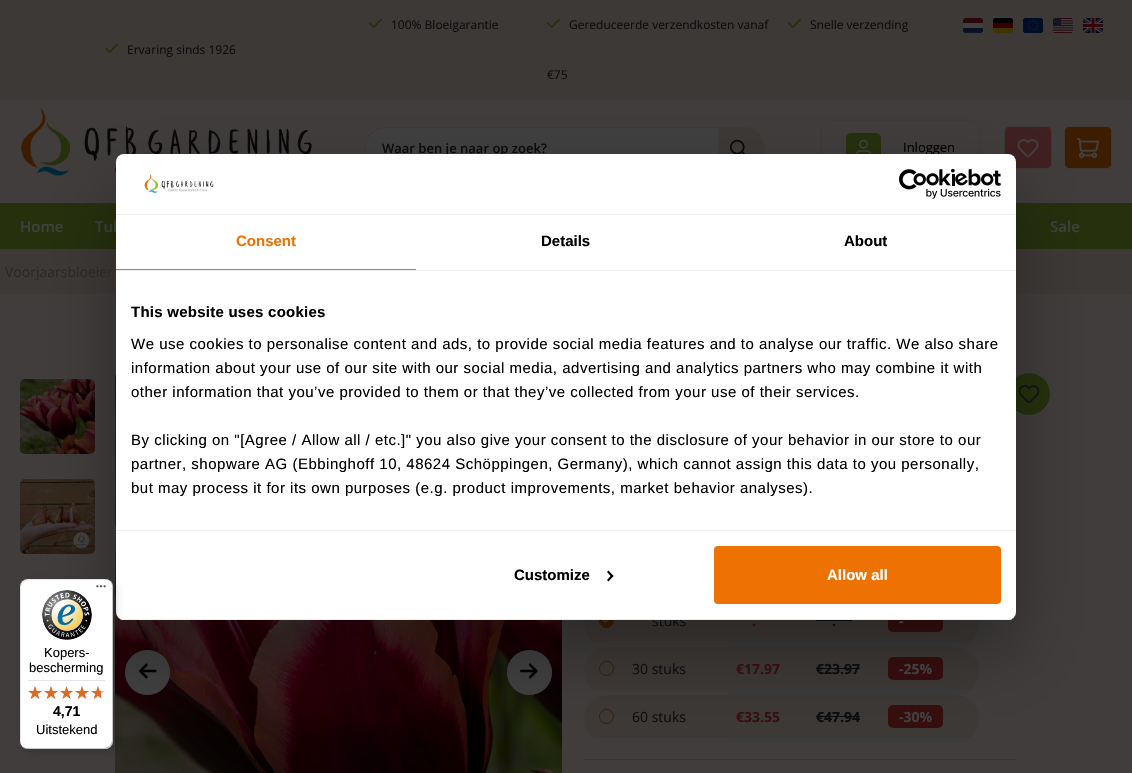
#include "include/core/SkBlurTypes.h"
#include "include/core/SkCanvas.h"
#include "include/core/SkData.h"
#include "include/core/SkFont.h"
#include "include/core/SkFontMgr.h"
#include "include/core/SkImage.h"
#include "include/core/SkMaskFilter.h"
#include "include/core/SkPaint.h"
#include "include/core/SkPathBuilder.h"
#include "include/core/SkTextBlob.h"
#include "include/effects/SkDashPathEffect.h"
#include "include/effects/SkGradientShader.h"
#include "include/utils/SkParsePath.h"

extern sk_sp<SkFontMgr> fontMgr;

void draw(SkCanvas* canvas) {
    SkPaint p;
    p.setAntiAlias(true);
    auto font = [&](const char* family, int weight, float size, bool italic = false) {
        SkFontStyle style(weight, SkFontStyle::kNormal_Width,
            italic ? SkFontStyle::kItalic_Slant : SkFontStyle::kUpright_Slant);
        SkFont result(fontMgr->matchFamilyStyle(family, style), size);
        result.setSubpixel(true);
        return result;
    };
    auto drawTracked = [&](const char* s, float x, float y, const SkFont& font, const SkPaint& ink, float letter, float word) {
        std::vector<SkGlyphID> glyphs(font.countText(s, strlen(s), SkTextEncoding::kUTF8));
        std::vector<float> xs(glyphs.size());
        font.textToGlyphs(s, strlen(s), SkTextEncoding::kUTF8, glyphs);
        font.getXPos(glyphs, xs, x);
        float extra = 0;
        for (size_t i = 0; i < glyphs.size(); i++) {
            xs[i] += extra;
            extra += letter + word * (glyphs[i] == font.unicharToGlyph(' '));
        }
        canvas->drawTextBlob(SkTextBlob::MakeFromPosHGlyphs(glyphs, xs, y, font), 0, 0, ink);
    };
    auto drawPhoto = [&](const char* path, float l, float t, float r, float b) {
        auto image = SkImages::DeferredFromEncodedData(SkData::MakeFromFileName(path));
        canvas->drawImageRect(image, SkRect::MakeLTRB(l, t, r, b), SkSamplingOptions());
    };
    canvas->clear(0xFF403D3C);
    p.setColor(0xFF3D3937);
    canvas->drawRect(SkRect::MakeLTRB(0, 0, 1132, 100), p);
    drawPhoto("media/1.png", 369, 18, 383, 28);
    auto font1 = font("Open Sans", 400, 12);
    p.setColor(0xFF0B0C0E);
    canvas->drawString("100% Bloeigarantie", 391, 29, font1, p);
    drawPhoto("media/1.png", 547, 18, 561, 28);
    canvas->drawString("Gereduceerde verzendkosten vanaf", 569, 29, font1, p);
    canvas->drawString("€75", 547, 79, font1, p);
    drawPhoto("media/1.png", 788, 18, 802, 28);
    canvas->drawString("Snelle verzending", 810, 29, font1, p);
    drawPhoto("media/1.png", 105, 43, 119, 53);
    canvas->drawString("Ervaring sinds 1926", 127, 54, font1, p);
    drawPhoto("media/2.png", 963, 18, 983, 33);
    drawPhoto("media/3.png", 993, 18, 1013, 33);
    drawPhoto("media/4.png", 1023, 18, 1043, 33);
    drawPhoto("media/5.png", 1053, 18, 1073, 33);
    drawPhoto("media/6.png", 1083, 18, 1103, 33);
    drawPhoto("media/7.png", 21, 108, 312, 176);
    p.setColor(0xFF404040);
    canvas->drawPath(SkPathBuilder().moveTo(385.5f, 128).lineTo(719, 128).lineTo(719, 167).lineTo(385.5f, 167).cubicTo(374.5f, 167, 366, 158.5f, 366, 147.5f).cubicTo(366, 136.5f, 374.5f, 128, 385.5f, 128).close().detach(), p);
    p.setColor(0xFF3C3936);
    canvas->drawPath(SkPathBuilder(SkPathFillType::kEvenOdd).moveTo(386, 127).lineTo(719, 127).lineTo(719, 168).lineTo(386, 168).cubicTo(374, 168, 365, 159, 365, 148).cubicTo(365, 136, 374, 127, 386, 127).close().moveTo(386, 128).lineTo(719, 128).lineTo(719, 167).lineTo(386, 167).cubicTo(375, 167, 366, 158, 366, 148).cubicTo(366, 137, 375, 128, 386, 128).close().detach(), p);
    auto font2 = font("Open Sans", 600, 13);
    p.setColor(0xFF0B0C0E);
    canvas->drawString("Waar ben je naar op zoek?", 382, 153, font2, p);
    p.setColor(0xFF3D3937);
    canvas->drawPath(SkPathBuilder().moveTo(718, 127).lineTo(744.5f, 127).cubicTo(756, 127, 765, 136, 765, 147.5f).cubicTo(765, 159, 756, 168, 744.5f, 168).lineTo(718, 168).close().detach(), p);
    drawPhoto("media/8.png", 730, 139, 746, 154);
    p.setStyle(SkPaint::kStroke_Style);
    p.setStrokeWidth(1);
    p.setColor(0xFF3C3936);
    canvas->drawRoundRect(SkRect::MakeLTRB(821.5f, 120.5f, 979.5f, 174.5f), 9.5f, 9.5f, p);
    p.setStyle(SkPaint::kFill_Style);
    p.setColor(0xFF26300D);
    canvas->drawRoundRect(SkRect::MakeLTRB(846, 133, 881, 163), 5, 5, p);
    drawPhoto("media/9.png", 856, 139, 871, 154);
    auto font3 = font("Open Sans", 400, 13);
    p.setColor(0xFF000000);
    canvas->drawString("Inloggen", 903, 152, font3, p);
    p.setColor(0xFF402020);
    canvas->drawRoundRect(SkRect::MakeLTRB(1004.5f, 126.5f, 1051.5f, 168.5f), 4.5f, 4.5f, p);
    p.setStyle(SkPaint::kStroke_Style);
    p.setColor(0xFF3C3936);
    canvas->drawRoundRect(SkRect::MakeLTRB(1004.5f, 126.5f, 1051.5f, 168.5f), 4.5f, 4.5f, p);
    drawPhoto("media/10.png", 1017, 139, 1039, 158);
    p.setStyle(SkPaint::kFill_Style);
    p.setColor(0xFF3C1D01);
    canvas->drawRoundRect(SkRect::MakeLTRB(1064.5f, 126.5f, 1111.5f, 168.5f), 4.5f, 4.5f, p);
    p.setStyle(SkPaint::kStroke_Style);
    p.setColor(0xFF3C3936);
    canvas->drawRoundRect(SkRect::MakeLTRB(1064.5f, 126.5f, 1111.5f, 168.5f), 4.5f, 4.5f, p);
    drawPhoto("media/11.png", 1077, 138, 1099, 159);
    p.setStyle(SkPaint::kFill_Style);
    p.setColor(0xFF26300D);
    canvas->drawRect(SkRect::MakeLTRB(0, 203, 1132, 249), p);
    auto font4 = font("Open Sans", 600, 15);
    p.setColor(0xFF404040);
    {
        const struct { const char* s; float x, y; } items[] = {
            {"Home", 20, 232},
            {"Tul", 95, 232},
            {"Sale", 1050, 232},
        };
        for (auto [s, x, y] : items) {
            canvas->drawString(s, x, y, font4, p);
        }
    }
    p.setColor(0xFF3D3937);
    canvas->drawRect(SkRect::MakeLTRB(0, 249, 1132, 294), p);
    drawPhoto("media/14.png", 20, 379, 95, 454);
    drawPhoto("media/15.png", 20, 479, 95, 554);
    drawPhoto("media/16.png", 115, 374, 562, 773);
    p.setColor(0xFF404040);
    canvas->drawCircle(147.5f, 672.5f, 22.5f, p);
    p.setStyle(SkPaint::kStroke_Style);
    p.setColor(0x80404040);
    canvas->drawCircle(147.5f, 672.5f, 22, p);
    drawPhoto("media/17.png", 139, 663, 157, 679);
    p.setStyle(SkPaint::kFill_Style);
    p.setColor(0xFF404040);
    canvas->drawCircle(529.5f, 672.5f, 22.5f, p);
    p.setStyle(SkPaint::kStroke_Style);
    p.setColor(0x80404040);
    canvas->drawCircle(529.5f, 672.5f, 22, p);
    drawPhoto("media/18.png", 520, 663, 538, 679);
    p.setStyle(SkPaint::kFill_Style);
    p.setColor(0xFF26300D);
    canvas->drawCircle(1029, 394, 21.5f, p);
    p.setStyle(SkPaint::kStroke_Style);
    p.setColor(0xFF404040);
    canvas->drawCircle(1029, 394, 21.5f, p);
    drawPhoto("media/19.png", 1018, 385, 1040, 404);
    p.setStyle(SkPaint::kFill_Style);
    p.setColor(0xFF3D3937);
    canvas->drawPath(SkPathBuilder().moveTo(608, 599).lineTo(728, 599).lineTo(728, 647).lineTo(608, 647).cubicTo(594.5f, 647, 584, 636.5f, 584, 623).cubicTo(584, 609.5f, 594.5f, 599, 608, 599).close().detach(), p);
    p.setColor(0xFF403D3C);
    canvas->drawRect(SkRect::MakeLTRB(596, 642, 728, 647), p);
    p.setColor(0xFF3C1D01);
    canvas->drawCircle(606.5f, 620.5f, 7, p);
    p.setStyle(SkPaint::kStroke_Style);
    canvas->drawCircle(606.5f, 620.5f, 7, p);
    drawPhoto("media/20.png", 602, 620, 609, 623);
    p.setStyle(SkPaint::kFill_Style);
    p.setColor(0xFF3D3937);
    canvas->drawPath(SkPathBuilder().moveTo(608, 647).lineTo(728, 647).lineTo(728, 695).lineTo(608, 695).cubicTo(594.5f, 695, 584, 684.5f, 584, 671).cubicTo(584, 657.5f, 594.5f, 647, 608, 647).close().detach(), p);
    p.setColor(0xFF403D3C);
    canvas->drawRect(SkRect::MakeLTRB(596, 690, 728, 695), p);
    p.setStyle(SkPaint::kStroke_Style);
    p.setColor(0xFF3C1D01);
    canvas->drawCircle(606.5f, 668.5f, 7, p);
    p.setStyle(SkPaint::kFill_Style);
    p.setColor(0xFF3D3937);
    canvas->drawPath(SkPathBuilder().moveTo(608, 695).lineTo(728, 695).lineTo(728, 743).lineTo(608, 743).cubicTo(594.5f, 743, 584, 732.5f, 584, 719).cubicTo(584, 705.5f, 594.5f, 695, 608, 695).close().detach(), p);
    p.setColor(0xFF403D3C);
    canvas->drawRect(SkRect::MakeLTRB(596, 738, 728, 743), p);
    p.setStyle(SkPaint::kStroke_Style);
    p.setColor(0xFF3C1D01);
    canvas->drawCircle(606.5f, 716.5f, 7, p);
    p.setStyle(SkPaint::kFill_Style);
    p.setColor(0xFF3D3937);
    canvas->drawPath(SkPathBuilder().moveTo(728, 599).lineTo(955, 599).cubicTo(968.5f, 599, 979, 609.5f, 979, 623).cubicTo(979, 636.5f, 968.5f, 647, 955, 647).lineTo(728, 647).close().detach(), p);
    p.setColor(0xFF3D3C3C);
    canvas->drawRect(SkRect::MakeLTRB(728, 642, 967, 647), p);
    p.setColor(0xFF370E0E);
    canvas->drawRoundRect(SkRect::MakeLTRB(888, 609, 943, 632), 5, 5, p);
    p.setColor(0xFF0B0C0E);
    canvas->drawRect(SkRect::MakeLTRB(816, 620, 852, 621), p);
    p.setColor(0xFF3D3937);
    canvas->drawPath(SkPathBuilder().moveTo(728, 647).lineTo(955, 647).cubicTo(968.5f, 647, 979, 657.5f, 979, 671).cubicTo(979, 684.5f, 968.5f, 695, 955, 695).lineTo(728, 695).close().detach(), p);
    p.setColor(0xFF3D3C3C);
    canvas->drawRect(SkRect::MakeLTRB(728, 690, 967, 695), p);
    p.setColor(0xFF0B0C0E);
    canvas->drawRect(SkRect::MakeLTRB(816, 668, 860, 669), p);
    p.setColor(0xFF370E0E);
    canvas->drawRoundRect(SkRect::MakeLTRB(888, 657, 943, 680), 5, 5, p);
    p.setColor(0xFF3D3937);
    canvas->drawPath(SkPathBuilder().moveTo(728, 695).lineTo(955, 695).cubicTo(968.5f, 695, 979, 705.5f, 979, 719).cubicTo(979, 732.5f, 968.5f, 743, 955, 743).lineTo(728, 743).close().detach(), p);
    p.setColor(0xFF3D3C3C);
    canvas->drawRect(SkRect::MakeLTRB(728, 738, 967, 743), p);
    p.setColor(0xFF0B0C0E);
    canvas->drawRect(SkRect::MakeLTRB(816, 716, 860, 717), p);
    p.setColor(0xFF370E0E);
    canvas->drawRoundRect(SkRect::MakeLTRB(888, 705, 943, 728), 5, 5, p);
    p.setColor(0x4D000000);
    p.setMaskFilter(SkMaskFilter::MakeBlur(kNormal_SkBlurStyle, 34));
    canvas->drawRoundRect(SkRect::MakeLTRB(116, 186, 1016, 652), 8, 8, p);
    p.setMaskFilter(nullptr);
    auto font5 = font("Open Sans", 400, 14);
    p.setColor(0xFF0B0C0E);
    canvas->drawString("stuks", 652, 626, font5, p);
    p.setColor(0xFFFFFFFF);
    canvas->drawRoundRect(SkRect::MakeLTRB(116, 154, 1016, 620), 8, 8, p);
    p.setColor(0xFFEEEEEE);
    canvas->drawRect(SkRect::MakeLTRB(116, 214, 1016, 215), p);
    drawPhoto("media/12.png", 144, 173, 214, 194);
    drawPhoto("media/13.png", 899, 169, 1001, 199);
    canvas->drawRect(SkRect::MakeLTRB(116, 270, 1016, 271), p);
    p.setColor(0xFFEE7201);
    canvas->drawRect(SkRect::MakeLTRB(116, 269, 416, 270), p);
    auto font6 = font("Liberation Sans", 700, 15);
    canvas->drawString("Consent", 236, 246, font6, p);
    p.setColor(0xFF000000);
    canvas->drawString("Details", 541, 246, font6, p);
    canvas->drawString("About", 844, 246, font6, p);
    p.setColor(0xFFEEEEEE);
    canvas->drawRect(SkRect::MakeLTRB(116, 530, 1016, 531), p);
    p.setColor(0xFF000000);
    drawTracked("This website uses cookies", 131, 317, font6, p, 0.25f, 0);
    auto font7 = font("Liberation Sans", 400, 15);
    {
        const struct { const char* s; float x, y; } items[] = {
            {"We use cookies to personalise content and ads, to provide social media features and to analyse our traffic. We also share", 131, 349},
            {"information about your use of our site with our social media, advertising and analytics partners who may combine it with", 131, 373},
            {"other information that you’ve provided to them or that they’ve collected from your use of their services.", 131, 397},
            {"By clicking on \"[Agree / Allow all / etc.]\" you also give your consent to the disclosure of your behavior in our store to our", 131, 445},
            {"partner, shopware AG (Ebbinghoff 10, 48624 Schöppingen, Germany), which cannot assign this data to you personally,", 131, 469},
            {"but may process it for its own purposes (e.g. product improvements, market behavior analyses).", 131, 493},
        };
        for (auto [s, x, y] : items) {
            drawTracked(s, x, y, font7, p, 0.5f, 0);
        }
    }
    canvas->save();
    canvas->clipPath(SkPathBuilder().moveTo(124, 154).lineTo(1008, 154).cubicTo(1012.5f, 154, 1016, 157.5f, 1016, 162).lineTo(1016, 612).cubicTo(1016, 616.5f, 1012.5f, 620, 1008, 620).lineTo(124, 620).cubicTo(119.5f, 620, 116, 616.5f, 116, 612).lineTo(116, 162).cubicTo(116, 157.5f, 119.5f, 154, 124, 154).close().detach(), true);
    p.setColor(0xFFEEEEEE);
    canvas->drawRect(SkRect::MakeLTRB(116, 619, 1016, 620), p);
    canvas->restore();
    p.setColor(0xFF000000);
    canvas->drawString("Customize", 514, 580, font6, p);
    canvas->drawPath(SkPathBuilder().moveTo(608.5f, 570.5f).lineTo(613.5f, 576).lineTo(612, 577.5f).lineTo(607, 572).close().detach(), p);
    canvas->drawPath(SkPathBuilder().moveTo(612, 574.5f).lineTo(613.5f, 576).lineTo(608.5f, 581.5f).lineTo(607, 580).close().detach(), p);
    p.setColor(0xFFEE7201);
    canvas->drawRoundRect(SkRect::MakeLTRB(715, 547, 1000, 603), 3, 3, p);
    p.setStyle(SkPaint::kStroke_Style);
    p.setStrokeWidth(2);
    canvas->drawRoundRect(SkRect::MakeLTRB(715, 547, 1000, 603), 3, 3, p);
    p.setStyle(SkPaint::kFill_Style);
    p.setColor(0xFFFFFFFF);
    canvas->drawString("Allow all", 827, 580, font6, p);
    p.setColor(0xFF282828);
    canvas->drawString("Voorjaarsbloeier", 5, 277, font5, p);
    p.setColor(0xFF0B0C0E);
    canvas->drawString("30 stuks", 632, 674, font5, p);
    canvas->drawString("60 stuks", 632, 722, font5, p);
    auto font8 = font("Open Sans", 700, 14);
    p.setColor(0xFF404040);
    canvas->drawString("-", 899, 626, font8, p);
    p.setColor(0xFF370E0E);
    canvas->drawString(".", 752, 626, font8, p);
    p.setColor(0xFF0B0C0E);
    canvas->drawString(".", 832, 626, font8, p);
    p.setColor(0xFF370E0E);
    canvas->drawString("€17.97", 736, 674, font8, p);
    p.setColor(0xFF0B0C0E);
    canvas->drawString("€23.97", 816, 674, font8, p);
    p.setColor(0xFF404040);
    canvas->drawString("-25%", 899, 674, font8, p);
    p.setColor(0xFF370E0E);
    canvas->drawString("€33.55", 736, 722, font8, p);
    p.setColor(0xFF0B0C0E);
    canvas->drawString("€47.94", 816, 722, font8, p);
    p.setColor(0xFF404040);
    canvas->drawString("-30%", 899, 722, font8, p);
    p.setColor(0xFF363331);
    canvas->drawRect(SkRect::MakeLTRB(584, 759, 1016, 760), p);
    p.setColor(0x26000000);
    p.setMaskFilter(SkMaskFilter::MakeBlur(kNormal_SkBlurStyle, 4));
    canvas->drawRoundRect(SkRect::MakeLTRB(23, 582, 116, 752), 8, 8, p);
    p.setMaskFilter(nullptr);
    p.setColor(0xFFFFFFFF);
    canvas->drawRoundRect(SkRect::MakeLTRB(20, 579, 113, 749), 8, 8, p);
    p.setColor(0x1A000000);
    canvas->drawPath(SkPathBuilder().moveTo(29, 580).lineTo(106, 580).cubicTo(108, 580, 110, 581, 112, 583).cubicTo(110, 581, 108, 579, 105, 579).lineTo(28, 579).cubicTo(24, 579, 20, 583, 20, 587).lineTo(20, 741).cubicTo(20, 744, 22, 746, 24, 748).cubicTo(22, 746, 21, 744, 21, 742).lineTo(21, 588).cubicTo(21, 584, 25, 580, 29, 580).close().detach(), p);
    p.setColor(0x33000000);
    canvas->drawPath(SkPathBuilder().moveTo(21, 745).cubicTo(23, 747, 25, 749, 28, 749).lineTo(105, 749).cubicTo(109, 749, 113, 745, 113, 741).lineTo(113, 587).cubicTo(113, 584, 111, 582, 109, 580).cubicTo(111, 582, 112, 584, 112, 586).lineTo(112, 740).cubicTo(112, 744, 108, 748, 104, 748).lineTo(27, 748).cubicTo(25, 748, 23, 747, 21, 745).close().detach(), p);
    p.setColor(0x33323232);
    canvas->drawPath(SkPathBuilder().moveTo(22, 746).cubicTo(23, 748, 26, 749, 28, 749).lineTo(105, 749).cubicTo(109, 749, 113, 745, 113, 741).lineTo(113, 587).cubicTo(113, 585, 112, 582, 110, 581).cubicTo(111, 582, 112, 584, 112, 586).lineTo(112, 740).cubicTo(112, 745, 109, 748, 104, 748).lineTo(27, 748).cubicTo(25, 748, 23, 747, 22, 746).close().detach(), p);
    p.setColor(0x4DFFFFFF);
    canvas->drawPath(SkPathBuilder().moveTo(20, 740).lineTo(20, 741).cubicTo(20, 745, 24, 749, 28, 749).lineTo(105, 749).cubicTo(109, 749, 113, 745, 113, 741).lineTo(113, 587).cubicTo(113, 585, 112, 582, 110, 581).cubicTo(111, 582, 112, 584, 112, 586).lineTo(112, 740).cubicTo(112, 745, 109, 748, 104, 748).lineTo(28, 748).cubicTo(23, 748, 20, 745, 20, 740).close().detach(), p);
    drawPhoto("media/21.png", 96, 585, 106, 588);
    drawPhoto("media/22.png", 42, 590, 92, 640);
    auto font9 = font("Liberation Sans", 400, 13);
    p.setColor(0xFF000000);
    canvas->drawString("Kopers-", 44, 657, font9, p);
    canvas->drawString("bescherming", 29, 672, font9, p);
    p.setColor(0xFFE5E5E5);
    canvas->drawRect(SkRect::MakeLTRB(28, 680, 105, 681), p);
    drawPhoto("media/23.png", 28, 686, 42, 699);
    drawPhoto("media/23.png", 44, 686, 58, 699);
    drawPhoto("media/24.png", 60, 686, 73, 699);
    drawPhoto("media/23.png", 75, 686, 89, 699);
    drawPhoto("media/23.png", 91, 686, 105, 699);
    drawPhoto("media/25.png", 28, 686, 42, 699);
    drawPhoto("media/25.png", 44, 686, 58, 699);
    drawPhoto("media/26.png", 60, 686, 73, 699);
    drawPhoto("media/25.png", 75, 686, 89, 699);
    drawPhoto("media/27.png", 91, 686, 101, 699);
    auto font10 = font("Liberation Sans", 700, 14);
    p.setColor(0xFF000000);
    canvas->drawString("4,71", 53, 716, font10, p);
    canvas->drawString("Uitstekend", 36, 734, font9, p);
}
